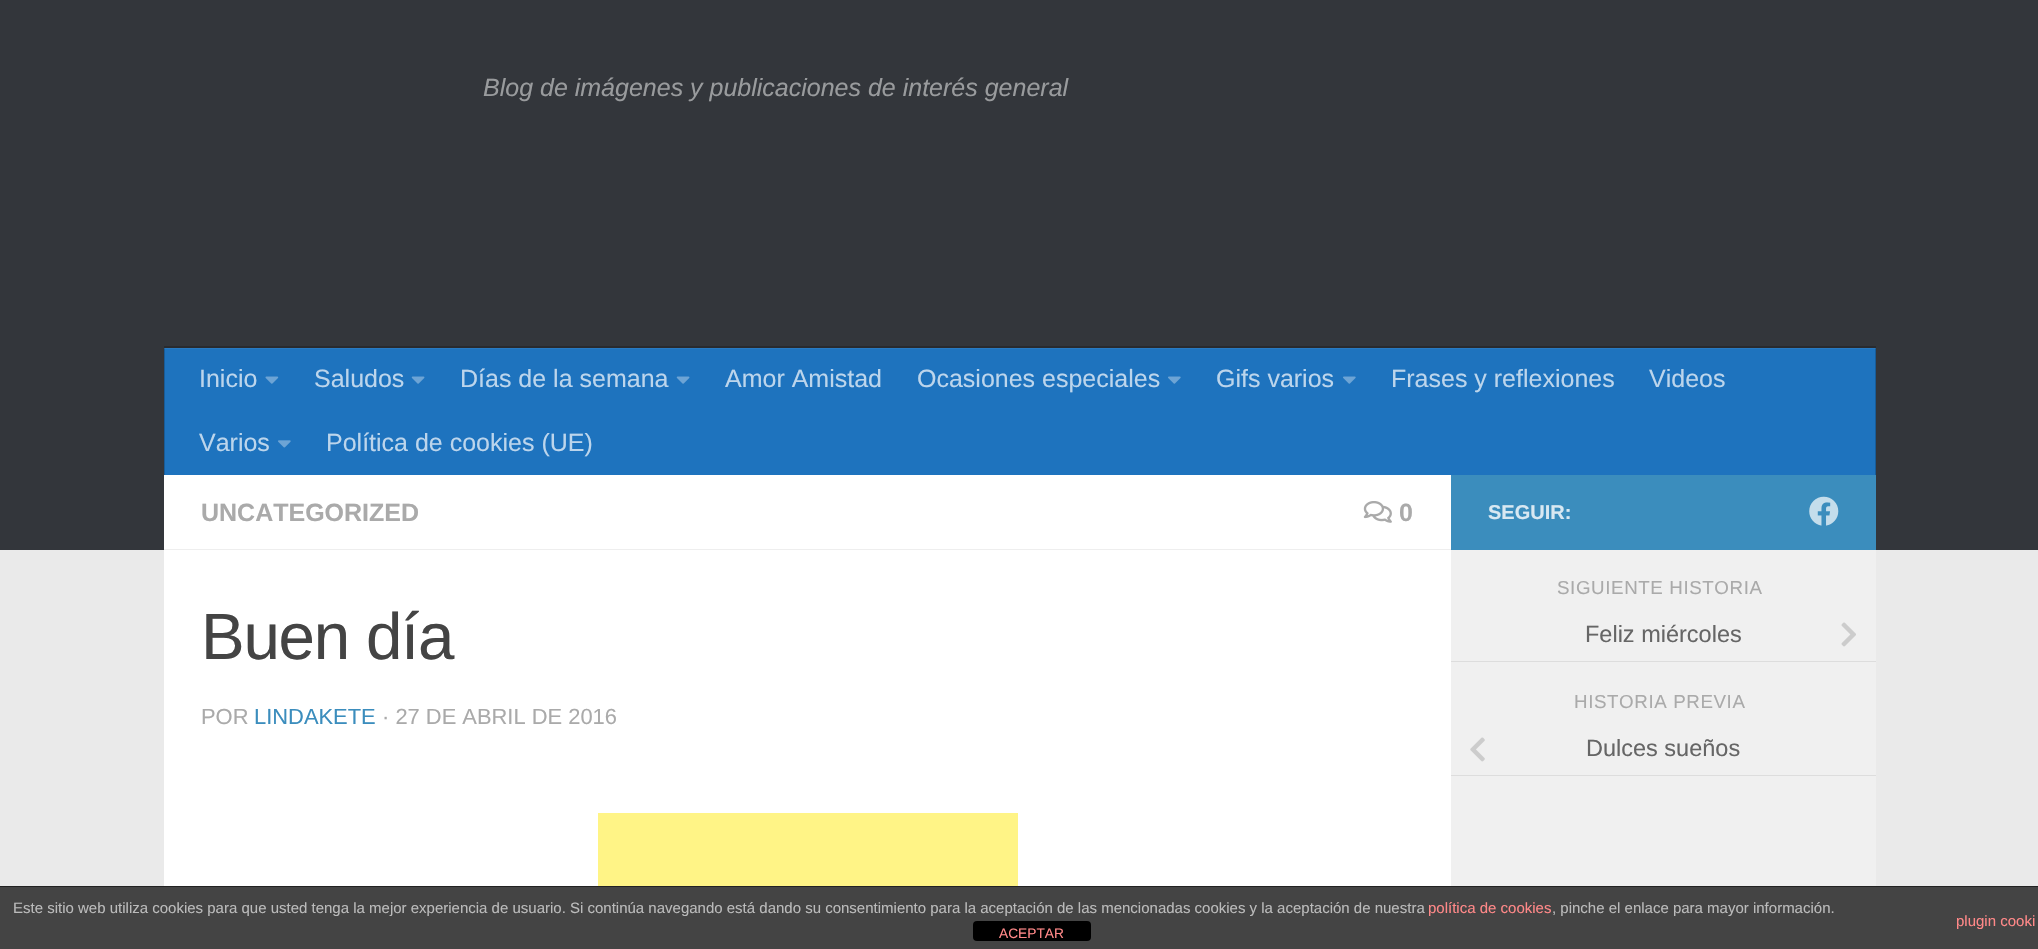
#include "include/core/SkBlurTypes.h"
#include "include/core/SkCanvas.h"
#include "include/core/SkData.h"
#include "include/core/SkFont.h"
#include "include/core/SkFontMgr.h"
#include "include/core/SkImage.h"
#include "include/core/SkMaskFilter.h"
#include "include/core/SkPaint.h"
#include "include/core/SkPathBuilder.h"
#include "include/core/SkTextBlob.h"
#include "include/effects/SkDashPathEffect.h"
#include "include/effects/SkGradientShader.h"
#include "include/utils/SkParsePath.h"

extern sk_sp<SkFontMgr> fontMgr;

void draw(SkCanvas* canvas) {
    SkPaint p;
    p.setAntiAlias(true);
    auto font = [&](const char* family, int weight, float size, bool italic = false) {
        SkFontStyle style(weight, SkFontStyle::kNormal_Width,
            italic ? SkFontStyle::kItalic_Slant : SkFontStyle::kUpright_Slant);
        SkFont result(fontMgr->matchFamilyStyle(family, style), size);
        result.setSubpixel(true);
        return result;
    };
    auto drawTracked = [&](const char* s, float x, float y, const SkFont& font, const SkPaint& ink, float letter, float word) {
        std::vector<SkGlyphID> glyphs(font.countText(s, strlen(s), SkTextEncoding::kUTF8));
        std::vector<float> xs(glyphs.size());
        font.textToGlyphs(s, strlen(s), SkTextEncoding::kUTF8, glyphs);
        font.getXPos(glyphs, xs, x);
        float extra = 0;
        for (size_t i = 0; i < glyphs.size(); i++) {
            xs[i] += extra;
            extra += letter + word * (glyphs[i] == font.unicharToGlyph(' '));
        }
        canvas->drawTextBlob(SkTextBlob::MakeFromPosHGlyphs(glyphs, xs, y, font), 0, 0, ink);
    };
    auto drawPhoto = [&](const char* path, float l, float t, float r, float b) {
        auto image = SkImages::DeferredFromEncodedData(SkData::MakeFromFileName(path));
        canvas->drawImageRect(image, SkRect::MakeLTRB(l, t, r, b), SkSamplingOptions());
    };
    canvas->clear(0xFFEAEAEA);
    p.setColor(0xFF33363B);
    canvas->drawRect(SkRect::MakeLTRB(0, 0, 2038, 550), p);
    auto font1 = font("Liberation Sans", 400, 25, true);
    p.setColor(0xFF999B9D);
    canvas->drawString("Blog de imágenes y publicaciones de interés general", 483, 96, font1, p);
    {
        const struct { float l, t, r, b; SkColor color; } items[] = {
            {164, 346, 1876, 348, 0xFF292B2F},
            {165, 349, 1875, 475, 0xFF1E73BE},
            {164, 348, 1876, 349, 0xFF297AC1},
            {1875, 348, 1876, 475, 0xFF185C98},
            {1875, 348, 1876, 349, 0xFF24649D},
            {164, 348, 165, 475, 0xFF185C98},
            {164, 348, 165, 349, 0xFF24649D},
        };
        for (auto [l, t, r, b, color] : items) {
            p.setColor(color);
            canvas->drawRect(SkRect::MakeLTRB(l, t, r, b), p);
        }
    }
    auto font2 = font("Liberation Sans", 400, 25);
    p.setColor(0xFFBCD5EC);
    canvas->drawString("Inicio", 199, 387, font2, p);
    drawPhoto("media/1.png", 265, 376, 279, 384);
    canvas->drawString("Saludos", 314, 387, font2, p);
    drawPhoto("media/2.png", 411, 376, 425, 384);
    canvas->drawString("Días de la semana", 460, 387, font2, p);
    drawPhoto("media/2.png", 676, 376, 690, 384);
    canvas->drawString("Amor Amistad", 725, 387, font2, p);
    canvas->drawString("Ocasiones especiales", 917, 387, font2, p);
    drawPhoto("media/3.png", 1168, 376, 1181, 384);
    canvas->drawString("Gifs varios", 1216, 387, font2, p);
    drawPhoto("media/3.png", 1343, 376, 1356, 384);
    {
        const struct { const char* s; float x, y; } items[] = {
            {"Frases y reflexiones", 1391, 387},
            {"Videos", 1649, 387},
            {"Varios", 199, 451},
        };
        for (auto [s, x, y] : items) {
            canvas->drawString(s, x, y, font2, p);
        }
    }
    drawPhoto("media/4.png", 278, 440, 291, 448);
    canvas->drawString("Política de cookies (UE)", 326, 451, font2, p);
    p.setColor(0xFFFFFFFF);
    canvas->drawRect(SkRect::MakeLTRB(164, 475, 1451, 886), p);
    p.setColor(0xFFEEEEEE);
    canvas->drawRect(SkRect::MakeLTRB(164, 549, 1451, 550), p);
    auto font3 = font("Liberation Sans", 700, 25);
    p.setColor(0xFFAAAAAA);
    canvas->drawString("UNCATEGORIZED", 201, 521, font3, p);
    drawPhoto("media/5.png", 1363, 501, 1392, 523);
    canvas->drawString("0", 1399, 521, font3, p);
    auto font4 = font("Liberation Sans", 400, 65.5f);
    p.setColor(0xFF444444);
    drawTracked("Buen día", 201, 659, font4, p, -1.25f, 0);
    auto font5 = font("Liberation Sans", 400, 21.9f);
    p.setColor(0xFFAAAAAA);
    canvas->drawString("POR", 201, 724, font5, p);
    p.setColor(0xFF3B8DBD);
    canvas->drawString("LINDAKETE", 254, 724, font5, p);
    p.setColor(0xFFAAAAAA);
    canvas->drawString("· 27 DE ABRIL DE 2016", 382, 724, font5, p);
    p.setColor(0xFFFFF486);
    canvas->drawRect(SkRect::MakeLTRB(598, 813, 1018, 886), p);
    p.setColor(0xFF3B8DBD);
    canvas->drawRect(SkRect::MakeLTRB(1451, 475, 1876, 550), p);
    auto font6 = font("Liberation Sans", 700, 20);
    p.setColor(0xFFD8E8F2);
    canvas->drawString("SEGUIR:", 1488, 519, font6, p);
    drawPhoto("media/6.png", 1809, 496, 1839, 526);
    p.setColor(0xFFF0F0F0);
    canvas->drawRect(SkRect::MakeLTRB(1451, 550, 1876, 886), p);
    auto font7 = font("Liberation Sans", 400, 18.75f);
    p.setColor(0xFFAAAAAA);
    drawTracked("SIGUIENTE HISTORIA", 1557, 594, font7, p, 0.6f, 0);
    p.setColor(0xFFDDDDDD);
    canvas->drawRect(SkRect::MakeLTRB(1451, 661, 1876, 662), p);
    auto font8 = font("Liberation Sans", 400, 23.5f);
    p.setColor(0xFF666666);
    canvas->drawString("Feliz miércoles", 1585, 642, font8, p);
    drawPhoto("media/7.png", 1841, 622, 1856, 647);
    p.setColor(0xFFAAAAAA);
    drawTracked("HISTORIA PREVIA", 1574, 708, font7, p, 0.6f, 0);
    p.setColor(0xFFDDDDDD);
    canvas->drawRect(SkRect::MakeLTRB(1451, 775, 1876, 776), p);
    drawPhoto("media/8.png", 1470, 737, 1485, 762);
    p.setColor(0xFF666666);
    canvas->drawString("Dulces sueños", 1586, 756, font8, p);
    p.setColor(0xFF444444);
    canvas->drawRect(SkRect::MakeLTRB(0, 887, 2038, 949), p);
    p.setColor(0xFF222222);
    canvas->drawRect(SkRect::MakeLTRB(0, 886, 2038, 887), p);
    auto font9 = font("Liberation Sans", 400, 15);
    p.setColor(0xFFBBBBBB);
    canvas->drawString("Este sitio web utiliza cookies para que usted tenga la mejor experiencia de usuario. Si continúa navegando está dando su consentimiento para la aceptación de las mencionadas cookies y la aceptación de nuestra", 13, 913, font9, p);
    p.setColor(0xFFFF8888);
    canvas->drawString("política de cookies", 1428, 913, font9, p);
    p.setColor(0xFFBBBBBB);
    canvas->drawString(", pinche el enlace para mayor información.", 1552, 913, font9, p);
    p.setColor(0xFFFF8888);
    canvas->drawString("plugin cooki", 1956, 926, font9, p);
    p.setColor(0xFF000000);
    canvas->drawRoundRect(SkRect::MakeLTRB(973, 921, 1091, 941), 4, 4, p);
    auto font10 = font("Liberation Sans", 400, 13.75f);
    p.setColor(0xFFFF8888);
    canvas->drawString("ACEPTAR", 999, 938, font10, p);
}
